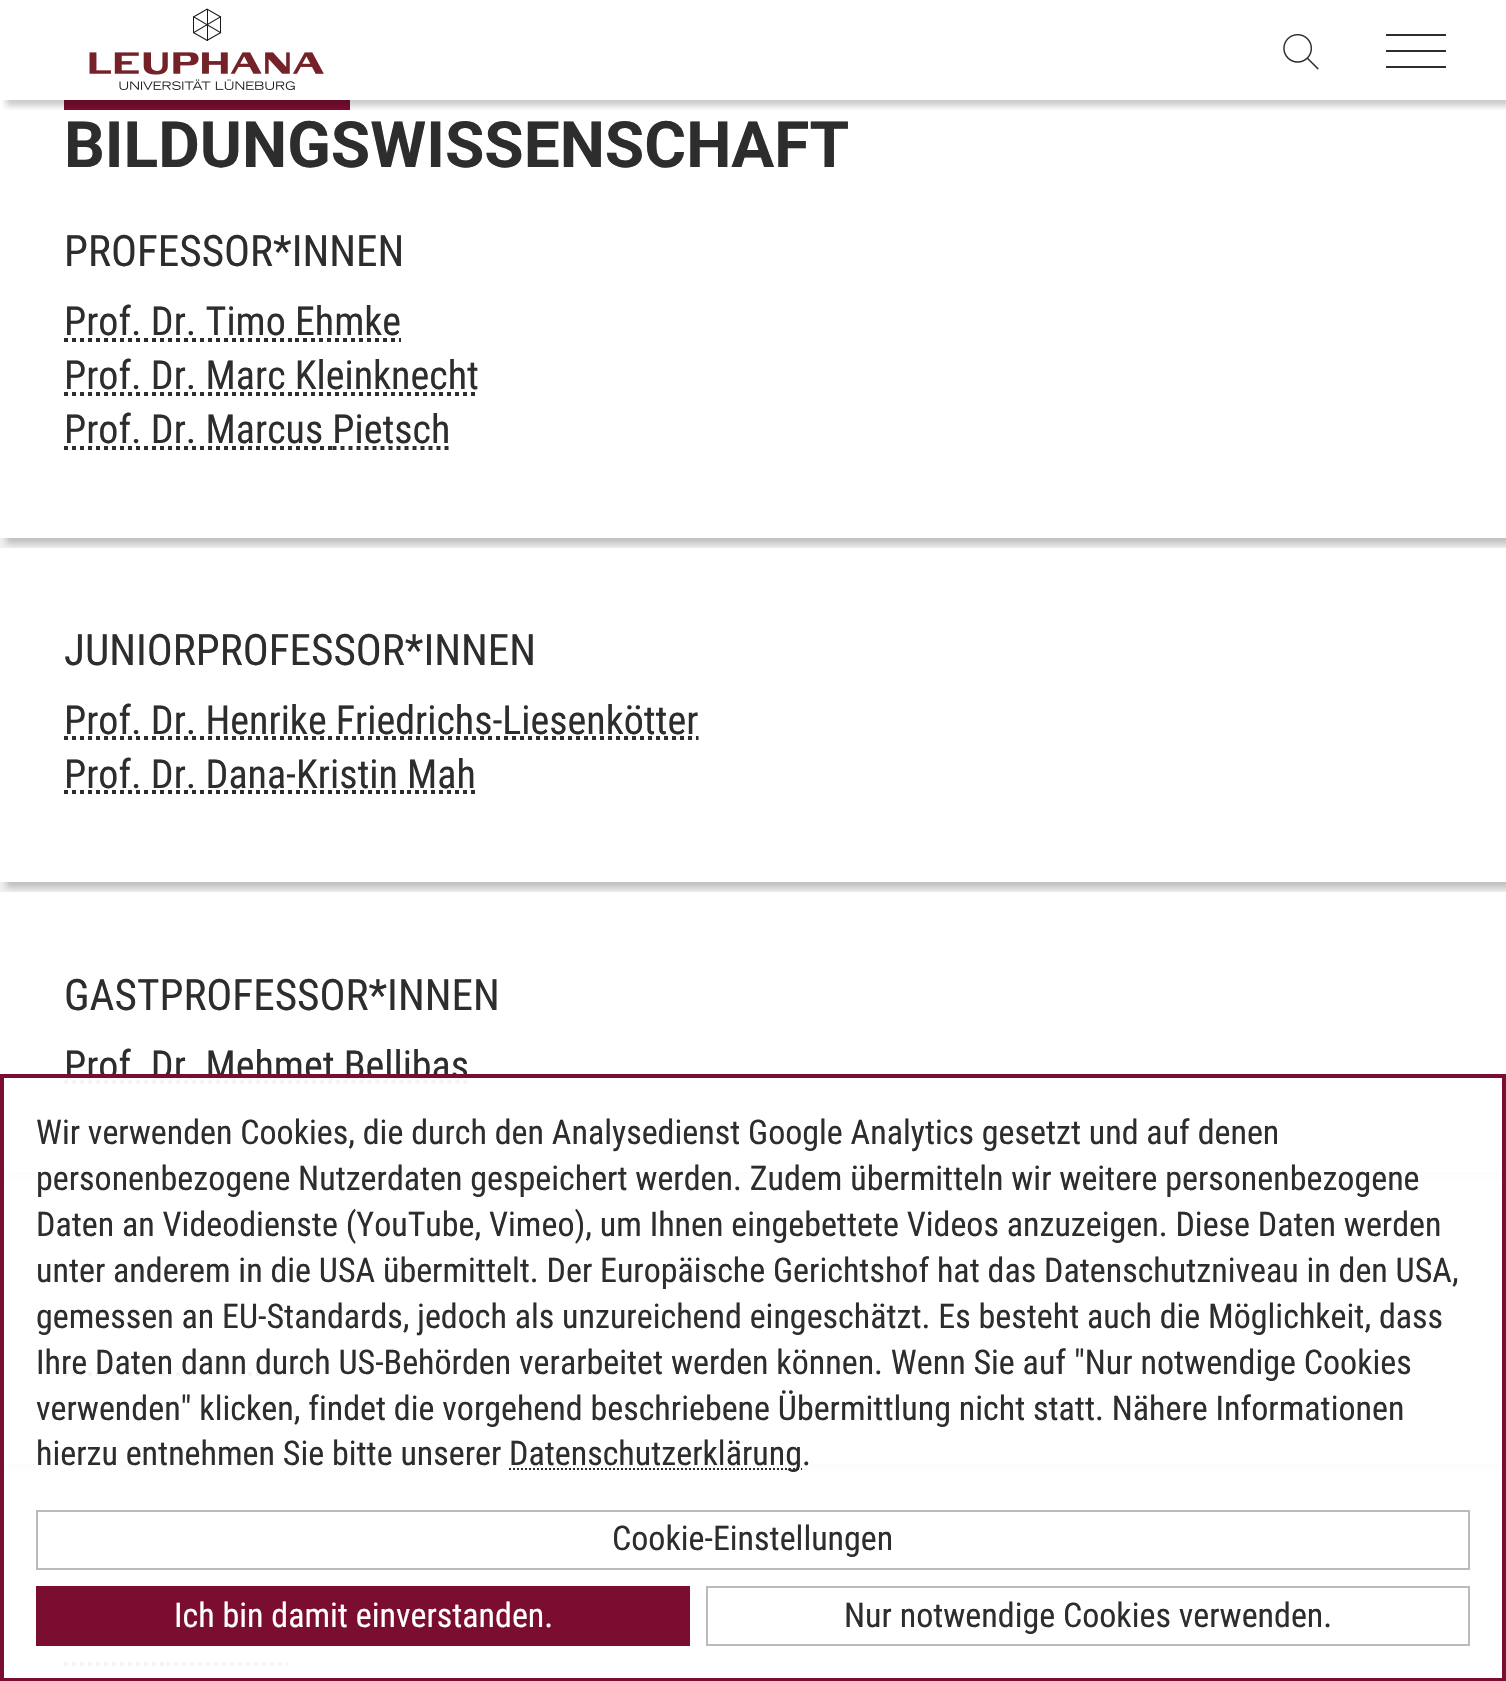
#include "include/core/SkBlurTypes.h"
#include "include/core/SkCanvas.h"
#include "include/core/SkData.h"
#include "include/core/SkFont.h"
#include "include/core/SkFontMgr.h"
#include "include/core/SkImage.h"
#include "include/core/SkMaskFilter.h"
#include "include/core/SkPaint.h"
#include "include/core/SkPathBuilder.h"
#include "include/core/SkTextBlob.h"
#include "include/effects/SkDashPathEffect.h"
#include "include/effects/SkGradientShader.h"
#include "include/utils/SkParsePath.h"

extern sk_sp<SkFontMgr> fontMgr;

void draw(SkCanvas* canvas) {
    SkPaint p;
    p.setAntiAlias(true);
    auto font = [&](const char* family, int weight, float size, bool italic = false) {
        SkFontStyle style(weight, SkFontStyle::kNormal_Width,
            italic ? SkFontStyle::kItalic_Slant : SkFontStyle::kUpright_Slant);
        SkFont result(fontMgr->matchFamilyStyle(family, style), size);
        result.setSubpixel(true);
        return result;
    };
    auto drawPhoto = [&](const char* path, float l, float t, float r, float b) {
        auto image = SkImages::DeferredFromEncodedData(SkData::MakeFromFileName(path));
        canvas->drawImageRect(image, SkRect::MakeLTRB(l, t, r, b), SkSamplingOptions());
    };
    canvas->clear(0xFFF1F1F0);
    p.setColor(0x33000000);
    p.setMaskFilter(SkMaskFilter::MakeBlur(kNormal_SkBlurStyle, 3));
    canvas->drawRect(SkRect::MakeLTRB(6, -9, 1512, 544), p);
    p.setMaskFilter(nullptr);
    p.setColor(0xFFFFFFFF);
    canvas->drawRect(SkRect::MakeLTRB(0, 0, 1506, 538), p);
    drawPhoto("media/1.png", 89, 8, 324, 90);
    p.setColor(0xFF7B0E30);
    canvas->drawRect(SkRect::MakeLTRB(64, 100, 350, 110), p);
    drawPhoto("media/2.png", 1283, 33, 1319, 70);
    {
        const struct { float l, t, r, b; SkColor color; } items[] = {
            {1386, 50, 1446, 52, 0xFF2D2D2D},
            {1386, 34, 1446, 36, 0xFF2D2D2D},
            {1386, 66, 1446, 68, 0xFF2D2D2D},
        };
        for (auto [l, t, r, b, color] : items) {
            p.setColor(color);
            canvas->drawRect(SkRect::MakeLTRB(l, t, r, b), p);
        }
    }
    canvas->save();
    canvas->clipRect(SkRect::MakeLTRB(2, 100, 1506, 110));
    p.setColor(0x33000000);
    p.setMaskFilter(SkMaskFilter::MakeBlur(kNormal_SkBlurStyle, 3));
    canvas->drawRect(SkRect::MakeLTRB(6, -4, 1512, 106), p);
    p.setMaskFilter(nullptr);
    canvas->restore();
    auto font1 = font("Roboto", 700, 64);
    p.setColor(0xFF2D2D2D);
    canvas->drawString("BILDUNGSWISSENSCHAFT", 64, 167, font1, p);
    auto font2 = font("Roboto Condensed", 400, 43.25f);
    canvas->drawString("PROFESSOR*INNEN", 64, 266, font2, p);
    auto font3 = font("Roboto Condensed", 400, 40);
    canvas->drawString("Prof. Dr. Timo Ehmke", 64, 335, font3, p);
    p.setStyle(SkPaint::kStroke_Style);
    p.setStrokeWidth(4);
    p.setPathEffect(SkDashPathEffect::Make({{4, 4}}, 0));
    canvas->drawPath(SkPathBuilder().moveTo(64, 340).lineTo(295, 340).detach(), p);
    p.setPathEffect(nullptr);
    p.setPathEffect(SkDashPathEffect::Make({{4, 4}}, 0));
    canvas->drawPath(SkPathBuilder().moveTo(295, 340).lineTo(401, 340).detach(), p);
    p.setPathEffect(nullptr);
    p.setStyle(SkPaint::kFill_Style);
    canvas->drawString("Prof. Dr. Marc Kleinknecht", 64, 389, font3, p);
    p.setStyle(SkPaint::kStroke_Style);
    p.setPathEffect(SkDashPathEffect::Make({{4, 4}}, 0));
    canvas->drawPath(SkPathBuilder().moveTo(64, 394).lineTo(295, 394).detach(), p);
    p.setPathEffect(nullptr);
    p.setPathEffect(SkDashPathEffect::Make({{4, 4}}, 0));
    canvas->drawPath(SkPathBuilder().moveTo(295, 394).lineTo(479, 394).detach(), p);
    p.setPathEffect(nullptr);
    p.setStyle(SkPaint::kFill_Style);
    canvas->drawString("Prof. Dr. Marcus Pietsch", 64, 443, font3, p);
    p.setStyle(SkPaint::kStroke_Style);
    p.setPathEffect(SkDashPathEffect::Make({{4, 4}}, 0));
    canvas->drawPath(SkPathBuilder().moveTo(64, 448).lineTo(332.5f, 448).detach(), p);
    p.setPathEffect(nullptr);
    p.setPathEffect(SkDashPathEffect::Make({{4, 4}}, 0));
    canvas->drawPath(SkPathBuilder().moveTo(332.5f, 448).lineTo(450.5f, 448).detach(), p);
    p.setPathEffect(nullptr);
    p.setStyle(SkPaint::kFill_Style);
    p.setColor(0x33000000);
    p.setMaskFilter(SkMaskFilter::MakeBlur(kNormal_SkBlurStyle, 3));
    canvas->drawRect(SkRect::MakeLTRB(6, 554, 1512, 888), p);
    p.setMaskFilter(nullptr);
    p.setColor(0xFFFFFFFF);
    canvas->drawRect(SkRect::MakeLTRB(0, 548, 1506, 882), p);
    p.setColor(0xFF2D2D2D);
    canvas->drawString("JUNIORPROFESSOR*INNEN", 64, 665, font2, p);
    canvas->drawString("Prof. Dr. Henrike Friedrichs-Liesenkötter", 64, 734, font3, p);
    p.setStyle(SkPaint::kStroke_Style);
    p.setPathEffect(SkDashPathEffect::Make({{4, 4}}, 0));
    canvas->drawPath(SkPathBuilder().moveTo(64, 738).lineTo(336, 738).detach(), p);
    p.setPathEffect(nullptr);
    p.setPathEffect(SkDashPathEffect::Make({{4, 4}}, 0));
    canvas->drawPath(SkPathBuilder().moveTo(336, 738).lineTo(698.5f, 738).detach(), p);
    p.setPathEffect(nullptr);
    p.setStyle(SkPaint::kFill_Style);
    canvas->drawString("Prof. Dr. Dana-Kristin Mah", 64, 788, font3, p);
    p.setStyle(SkPaint::kStroke_Style);
    p.setPathEffect(SkDashPathEffect::Make({{4, 4}}, 0));
    canvas->drawPath(SkPathBuilder().moveTo(64, 792).lineTo(407, 792).detach(), p);
    p.setPathEffect(nullptr);
    p.setPathEffect(SkDashPathEffect::Make({{4, 4}}, 0));
    canvas->drawPath(SkPathBuilder().moveTo(407, 792).lineTo(475.5f, 792).detach(), p);
    p.setPathEffect(nullptr);
    p.setStyle(SkPaint::kFill_Style);
    p.setColor(0x33000000);
    p.setMaskFilter(SkMaskFilter::MakeBlur(kNormal_SkBlurStyle, 3));
    canvas->drawRect(SkRect::MakeLTRB(6, 898, 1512, 1178), p);
    p.setMaskFilter(nullptr);
    p.setColor(0xFFFFFFFF);
    canvas->drawRect(SkRect::MakeLTRB(0, 892, 1506, 1172), p);
    p.setColor(0xFF2D2D2D);
    canvas->drawString("GASTPROFESSOR*INNEN", 64, 1010, font2, p);
    canvas->drawString("Prof. Dr. Mehmet Bellibas", 64, 1079, font3, p);
    p.setStyle(SkPaint::kStroke_Style);
    p.setPathEffect(SkDashPathEffect::Make({{4, 4}}, 0));
    canvas->drawPath(SkPathBuilder().moveTo(64, 1082).lineTo(344, 1082).detach(), p);
    p.setPathEffect(nullptr);
    p.setPathEffect(SkDashPathEffect::Make({{4, 4}}, 0));
    canvas->drawPath(SkPathBuilder().moveTo(343.5f, 1082).lineTo(469, 1082).detach(), p);
    p.setPathEffect(nullptr);
    p.setStyle(SkPaint::kFill_Style);
    p.setColor(0x33000000);
    p.setMaskFilter(SkMaskFilter::MakeBlur(kNormal_SkBlurStyle, 3));
    canvas->drawRect(SkRect::MakeLTRB(6, 1188, 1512, 1470), p);
    p.setMaskFilter(nullptr);
    p.setColor(0xFFFFFFFF);
    canvas->drawRect(SkRect::MakeLTRB(4, 1182, 1502, 1464), p);
    p.setStyle(SkPaint::kStroke_Style);
    p.setColor(0xFF2D2D2D);
    p.setPathEffect(SkDashPathEffect::Make({{4, 4}}, 0));
    canvas->drawPath(SkPathBuilder().moveTo(64, 1374).lineTo(267, 1374).detach(), p);
    p.setPathEffect(nullptr);
    p.setPathEffect(SkDashPathEffect::Make({{4, 4}}, 0));
    canvas->drawPath(SkPathBuilder().moveTo(267, 1374).lineTo(318, 1374).detach(), p);
    p.setPathEffect(nullptr);
    p.setStyle(SkPaint::kFill_Style);
    p.setColor(0xFFFFFFFF);
    canvas->drawRect(SkRect::MakeLTRB(4, 1474, 1502, 1678), p);
    p.setStyle(SkPaint::kStroke_Style);
    p.setColor(0xFF2D2D2D);
    p.setPathEffect(SkDashPathEffect::Make({{4, 4}}, 0));
    canvas->drawPath(SkPathBuilder().moveTo(64, 1664).lineTo(166.5f, 1664).detach(), p);
    p.setPathEffect(nullptr);
    p.setPathEffect(SkDashPathEffect::Make({{4, 4}}, 0));
    canvas->drawPath(SkPathBuilder().moveTo(166.5f, 1664).lineTo(288, 1664).detach(), p);
    p.setPathEffect(nullptr);
    p.setStyle(SkPaint::kFill_Style);
    p.setColor(0xF2FFFFFF);
    canvas->drawRect(SkRect::MakeLTRB(4, 1078, 1502, 1666), p);
    p.setStyle(SkPaint::kStroke_Style);
    p.setColor(0xFF7B0E30);
    canvas->drawRect(SkRect::MakeLTRB(2, 1076, 1504, 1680), p);
    auto font4 = font("Roboto Condensed", 400, 34);
    p.setStyle(SkPaint::kFill_Style);
    p.setColor(0xFF2D2D2D);
    {
        const struct { const char* s; float x, y; } items[] = {
            {"Wir verwenden Cookies, die durch den Analysedienst Google Analytics gesetzt und auf denen", 36, 1144},
            {"personenbezogene Nutzerdaten gespeichert werden. Zudem übermitteln wir weitere personenbezogene", 36, 1190},
            {"Daten an Videodienste (YouTube, Vimeo), um Ihnen eingebettete Videos anzuzeigen. Diese Daten werden", 36, 1236},
            {"unter anderem in die USA übermittelt. Der Europäische Gerichtshof hat das Datenschutzniveau in den USA,", 36, 1282},
            {"gemessen an EU-Standards, jedoch als unzureichend eingeschätzt. Es besteht auch die Möglichkeit, dass", 36, 1328},
            {"Ihre Daten dann durch US-Behörden verarbeitet werden können. Wenn Sie auf \"Nur notwendige Cookies", 36, 1374},
            {"verwenden\" klicken, findet die vorgehend beschriebene Übermittlung nicht statt. Nähere Informationen", 36, 1420},
            {"hierzu entnehmen Sie bitte unserer", 36, 1465},
        };
        for (auto [s, x, y] : items) {
            canvas->drawString(s, x, y, font4, p);
        }
    }
    p.setStyle(SkPaint::kStroke_Style);
    p.setStrokeWidth(2);
    p.setPathEffect(SkDashPathEffect::Make({{2, 2}}, 0));
    canvas->drawPath(SkPathBuilder().moveTo(509, 1469).lineTo(802, 1469).detach(), p);
    p.setPathEffect(nullptr);
    p.setStyle(SkPaint::kFill_Style);
    canvas->drawString("Datenschutzerklärung.", 509, 1465, font4, p);
    p.setStyle(SkPaint::kStroke_Style);
    p.setColor(0xFFB9BBB6);
    canvas->drawRect(SkRect::MakeLTRB(37, 1511, 1469, 1569), p);
    p.setStyle(SkPaint::kFill_Style);
    p.setColor(0xFF2D2D2D);
    canvas->drawString("Cookie-Einstellungen", 612, 1550, font4, p);
    p.setColor(0xFF7B0E30);
    canvas->drawRect(SkRect::MakeLTRB(36, 1586, 690, 1646), p);
    p.setColor(0xFFFFFFFF);
    canvas->drawString("Ich bin damit einverstanden.", 174, 1627, font4, p);
    p.setStyle(SkPaint::kStroke_Style);
    p.setColor(0xFFB9BBB6);
    canvas->drawRect(SkRect::MakeLTRB(707, 1587, 1469, 1645), p);
    p.setStyle(SkPaint::kFill_Style);
    p.setColor(0xFF2D2D2D);
    canvas->drawString("Nur notwendige Cookies verwenden.", 844, 1627, font4, p);
}
